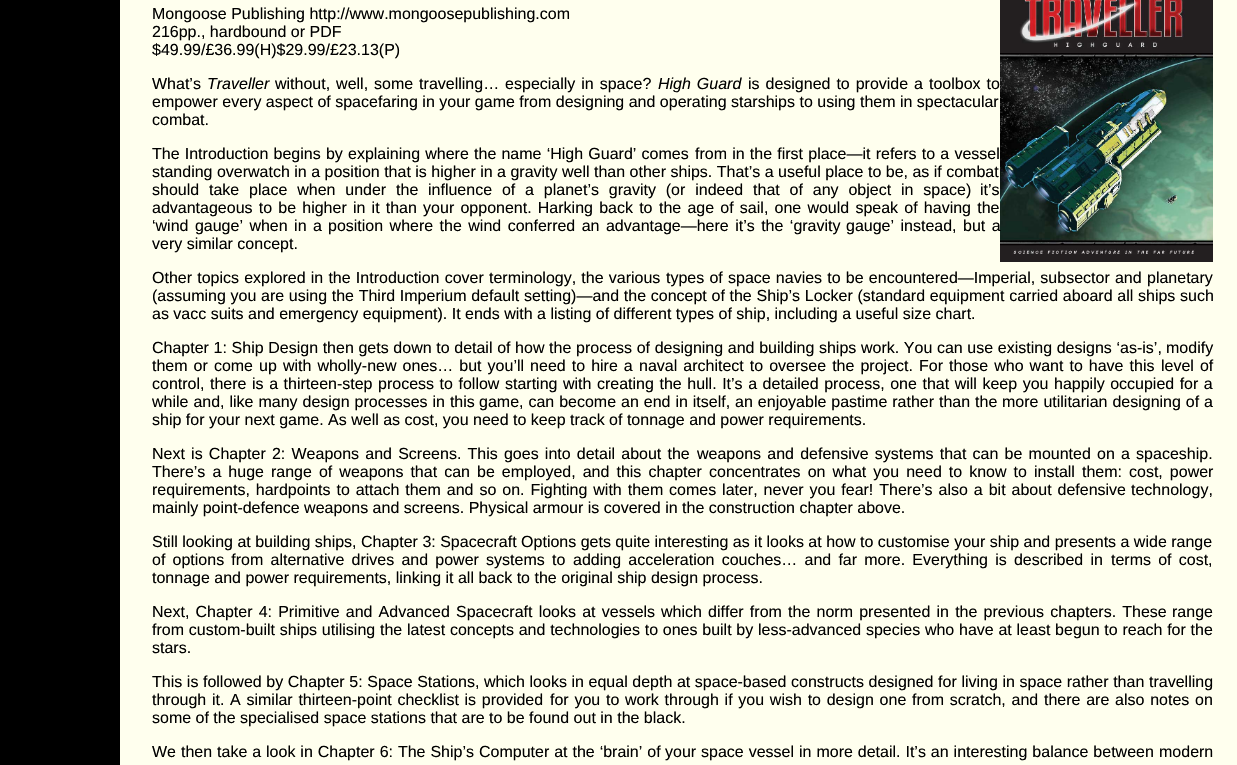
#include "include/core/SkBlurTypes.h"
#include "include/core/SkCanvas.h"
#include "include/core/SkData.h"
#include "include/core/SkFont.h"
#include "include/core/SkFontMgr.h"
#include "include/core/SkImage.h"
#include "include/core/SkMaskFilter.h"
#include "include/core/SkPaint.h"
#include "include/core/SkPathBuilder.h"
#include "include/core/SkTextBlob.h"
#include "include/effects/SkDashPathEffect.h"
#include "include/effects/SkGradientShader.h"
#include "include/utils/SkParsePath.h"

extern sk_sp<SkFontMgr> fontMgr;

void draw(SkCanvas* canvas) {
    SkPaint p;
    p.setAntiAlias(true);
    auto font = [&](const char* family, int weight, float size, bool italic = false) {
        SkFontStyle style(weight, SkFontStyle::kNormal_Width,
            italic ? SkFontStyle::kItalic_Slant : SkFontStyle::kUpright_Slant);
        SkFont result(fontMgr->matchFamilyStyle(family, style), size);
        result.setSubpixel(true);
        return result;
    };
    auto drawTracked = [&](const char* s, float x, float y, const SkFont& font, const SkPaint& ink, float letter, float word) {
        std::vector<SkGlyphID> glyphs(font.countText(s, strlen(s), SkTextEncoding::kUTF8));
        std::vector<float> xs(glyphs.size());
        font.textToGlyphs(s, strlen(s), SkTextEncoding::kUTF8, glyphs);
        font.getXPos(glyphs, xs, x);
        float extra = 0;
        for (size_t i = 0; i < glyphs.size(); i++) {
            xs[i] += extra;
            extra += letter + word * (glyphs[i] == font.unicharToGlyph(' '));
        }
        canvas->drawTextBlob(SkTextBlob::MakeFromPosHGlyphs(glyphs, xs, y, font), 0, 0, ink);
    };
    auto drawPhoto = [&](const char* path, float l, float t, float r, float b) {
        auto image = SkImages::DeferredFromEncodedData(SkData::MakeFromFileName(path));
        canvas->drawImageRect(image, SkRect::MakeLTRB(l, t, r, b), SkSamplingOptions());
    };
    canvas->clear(0xFF000000);
    p.setColor(0xFFFFFFEE);
    canvas->drawRect(SkRect::MakeLTRB(120, 0, 1237, 765), p);
    auto font1 = font("Liberation Sans", 400, 16);
    p.setColor(0xFF000000);
    canvas->drawString("Mongoose Publishing http://www.mongoosepublishing.com", 152, 19, font1, p);
    drawPhoto("media/1.png", 1000, 0, 1213, 262);
    {
        const struct { const char* s; float x, y; } items[] = {
            {"216pp., hardbound or PDF", 152, 37},
            {"$49.99/£36.99(H)$29.99/£23.13(P)", 152, 55},
            {"What’s", 152, 89},
        };
        for (auto [s, x, y] : items) {
            canvas->drawString(s, x, y, font1, p);
        }
    }
    auto font2 = font("Liberation Sans", 400, 16, true);
    canvas->drawString("Traveller", 207, 89, font2, p);
    drawTracked("without, well, some travelling… especially in space?", 275, 89, font1, p, 0, 1.5f);
    drawTracked("High Guard", 658, 89, font2, p, 0, 1.5f);
    drawTracked("is designed to provide a toolbox to", 748, 89, font1, p, 0, 1.5f);
    canvas->drawString("empower every aspect of spacefaring in your game from designing and operating starships to using them in spectacular", 152, 107, font1, p);
    canvas->drawString("combat.", 152, 125, font1, p);
    drawTracked("The Introduction begins by explaining where the name ‘High Guard’ comes", 152, 159, font1, p, 0, 0.75f);
    drawTracked("from in the first place—it refers to a vessel", 695, 159, font1, p, 0, 0.75f);
    canvas->drawString("standing overwatch in a position that is higher in a gravity well than other ships. That’s a useful place to be, as if combat", 152, 177, font1, p);
    drawTracked("should take place when under the", 152, 195, font1, p, 0, 5.4f);
    drawTracked("influence of a planet’s gravity (or indeed that of any object in space)", 428, 195, font1, p, 0, 5.4f);
    canvas->drawString("it’s", 980, 195, font1, p);
    drawTracked("advantageous to be higher in it than your opponent. Harking back to", 152, 213, font1, p, 0, 1.75f);
    drawTracked("the age of sail, one would speak of having the", 659, 213, font1, p, 0, 1.75f);
    {
        const struct { const char* s; float x, y; } items[] = {
            {"‘wind gauge’ when in a", 152, 231},
            {"position where the wind conferred an advantage—here it’s the ‘gravity", 328, 231},
            {"gauge’ instead, but a", 846, 231},
        };
        for (auto [s, x, y] : items) {
            drawTracked(s, x, y, font1, p, 0, 2);
        }
    }
    canvas->drawString("very similar concept.", 152, 249, font1, p);
    drawTracked("Other topics explored in the Introduction cover terminology, the various", 152, 283, font1, p, 0, 0.75f);
    drawTracked("types of space navies to be encountered—Imperial, subsector and", 666, 283, font1, p, 0, 0.75f);
    canvas->drawString("planetary", 1147, 283, font1, p);
    drawTracked("(assuming you are using the Third Imperium default setting)—and the concept of the Ship’s Locker (standard equipment carried aboard all ships such", 152, 301, font1, p, 0, 0.25f);
    canvas->drawString("as vacc suits and emergency equipment). It ends with a listing of different types of ship, including a useful size chart.", 152, 319, font1, p);
    drawTracked("Chapter 1: Ship Design then gets down to detail of how the process of designing and building ships work. You can use existing designs ‘as-is’,", 152, 353, font1, p, 0, 0.2f);
    canvas->drawString("modify", 1166, 353, font1, p);
    {
        const struct { const char* s; float x, y; } items[] = {
            {"them or come up with wholly-new ones… but you’ll need to hire a", 152, 371},
            {"naval architect to oversee the project. For those who want to have this", 639, 371},
            {"level of", 1161, 371},
        };
        for (auto [s, x, y] : items) {
            drawTracked(s, x, y, font1, p, 0, 1.6f);
        }
    }
    drawTracked("control, there is a thirteen-step process to follow starting", 152, 389, font1, p, 0, 1.1f);
    drawTracked("with creating the hull. It’s a detailed process, one that will keep you", 563, 389, font1, p, 0, 1.1f);
    drawTracked("happily occupied for a", 1054, 389, font1, p, 0, 1);
    {
        const struct { const char* s; float x, y; } items[] = {
            {"while and, like many design processes in this", 152, 407},
            {"game, can become an end in itself, an enjoyable pastime rather than the", 479, 407},
            {"more utilitarian designing of a", 1002, 407},
        };
        for (auto [s, x, y] : items) {
            drawTracked(s, x, y, font1, p, 0, 0.5f);
        }
    }
    canvas->drawString("ship for your next game. As well as cost, you need to keep track of tonnage and power requirements.", 152, 425, font1, p);
    drawTracked("Next is Chapter 2: Weapons and Screens. This goes into detail about the", 152, 459, font1, p, 0, 1.75f);
    drawTracked("weapons and defensive systems that can be mounted on a spaceship.", 697, 459, font1, p, 0, 1.75f);
    drawTracked("There’s a huge range of weapons that can be employed, and this chapter", 152, 477, font1, p, 0, 2.6f);
    drawTracked("concentrates on what you need to know to install them: cost, power", 709, 477, font1, p, 0, 2.6f);
    drawTracked("requirements, hardpoints to attach them and so on. Fighting with them", 152, 495, font1, p, 0, 1.5f);
    drawTracked("comes later, never you fear! There’s also a bit about defensive", 669, 495, font1, p, 0, 1.5f);
    {
        const struct { const char* s; float x, y; } items[] = {
            {"technology,", 1131, 495},
            {"mainly point-defence weapons and screens. Physical armour is covered in the construction chapter above.", 152, 513},
            {"Still looking at building ships, Chapter 3: Spacecraft Options gets quite interesting as it looks at how to customise your ship and presents a wide range", 152, 547},
        };
        for (auto [s, x, y] : items) {
            canvas->drawString(s, x, y, font1, p);
        }
    }
    {
        const struct { const char* s; float x, y; } items[] = {
            {"of options from alternative drives and power systems to", 152, 565},
            {"adding acceleration couches… and far more. Everything is described in", 573, 565},
            {"terms of cost,", 1111, 565},
        };
        for (auto [s, x, y] : items) {
            drawTracked(s, x, y, font1, p, 0, 2.75f);
        }
    }
    canvas->drawString("tonnage and power requirements, linking it all back to the original ship design process.", 152, 583, font1, p);
    drawTracked("Next, Chapter 4: Primitive and Advanced Spacecraft looks at vessels", 152, 617, font1, p, 0, 1.75f);
    drawTracked("which differ from the norm presented in the previous chapters. These", 661, 617, font1, p, 0, 1.75f);
    canvas->drawString("range", 1172, 617, font1, p);
    drawTracked("from custom-built ships utilising the latest concepts and technologies to ones built by less-advanced species who have at least begun to reach for the", 152, 635, font1, p, 0, 0.3f);
    canvas->drawString("stars.", 152, 653, font1, p);
    drawTracked("This is followed by Chapter 5: Space Stations, which looks in equal depth at space-based constructs designed for living in space rather than", 152, 687, font1, p, 0, 0.15f);
    canvas->drawString("travelling", 1149, 687, font1, p);
    drawTracked("through it. A similar thirteen-point checklist is provided", 152, 705, font1, p, 0, 1.25f);
    drawTracked("for you to work through if you wish to design one from scratch, and", 550, 705, font1, p, 0, 1.3f);
    drawTracked("there are also notes on", 1044, 705, font1, p, 0, 1.3f);
    canvas->drawString("some of the specialised space stations that are to be found out in the black.", 152, 723, font1, p);
    drawTracked("We then take a look in Chapter 6: The Ship’s Computer at the ‘brain’ of", 152, 757, font1, p, 0, 0.5f);
    drawTracked("your space vessel in more detail. It’s an interesting balance between", 665, 757, font1, p, 0, 0.5f);
    canvas->drawString("modern", 1159, 757, font1, p);
}
